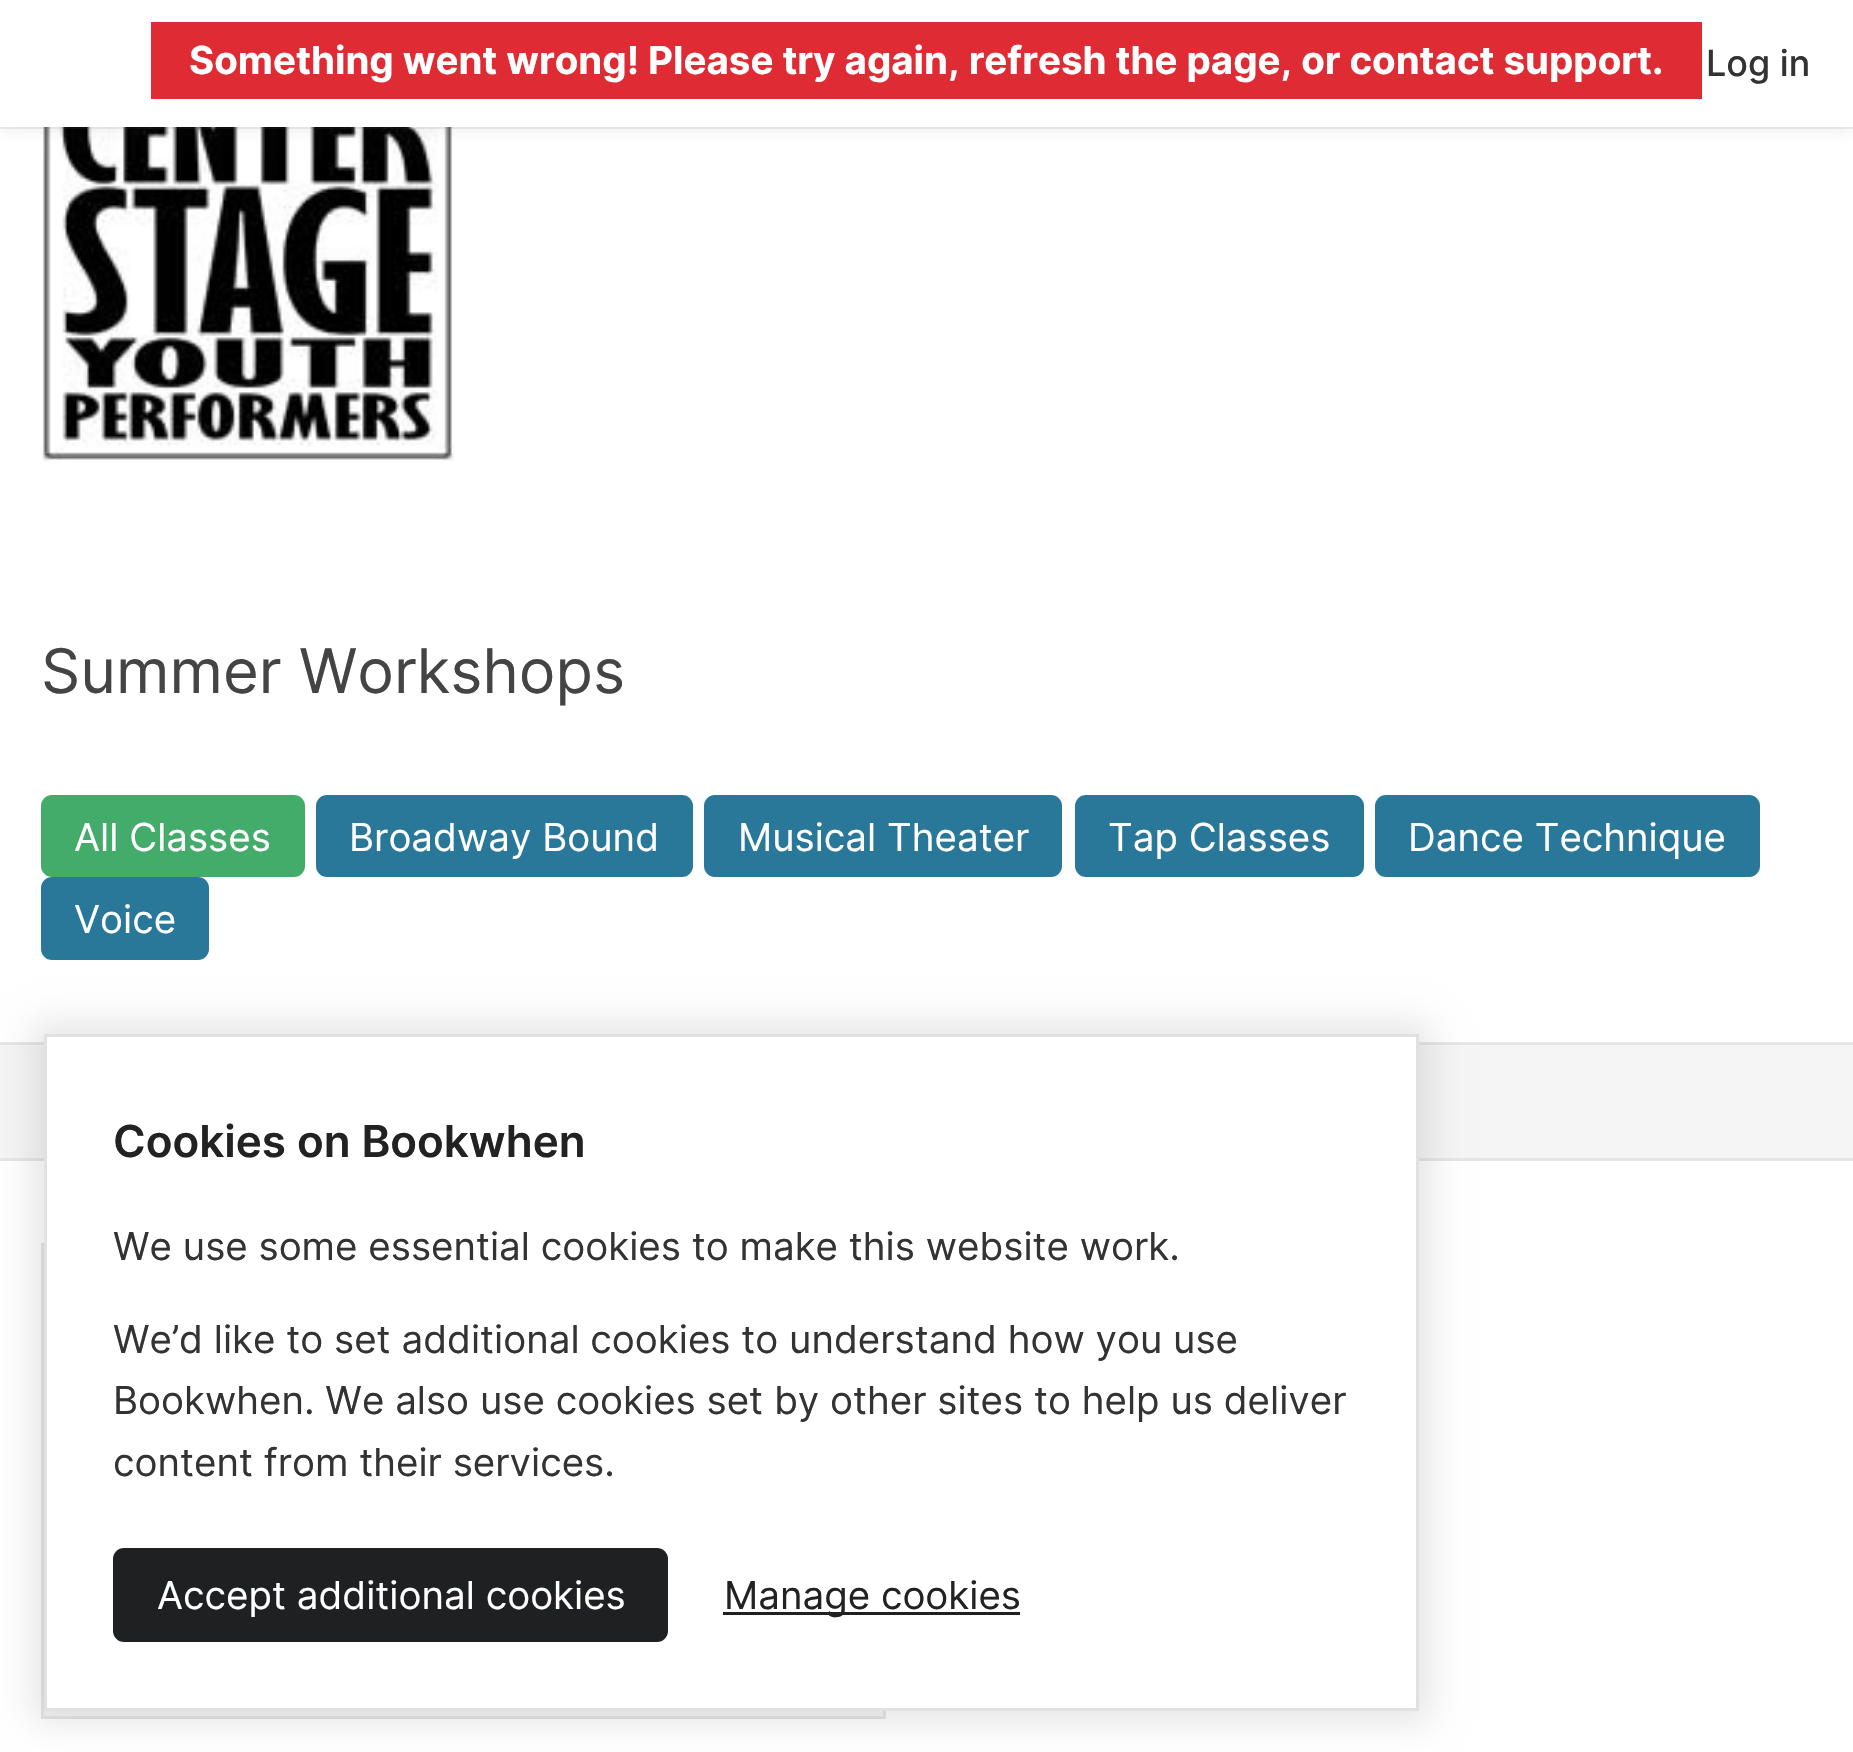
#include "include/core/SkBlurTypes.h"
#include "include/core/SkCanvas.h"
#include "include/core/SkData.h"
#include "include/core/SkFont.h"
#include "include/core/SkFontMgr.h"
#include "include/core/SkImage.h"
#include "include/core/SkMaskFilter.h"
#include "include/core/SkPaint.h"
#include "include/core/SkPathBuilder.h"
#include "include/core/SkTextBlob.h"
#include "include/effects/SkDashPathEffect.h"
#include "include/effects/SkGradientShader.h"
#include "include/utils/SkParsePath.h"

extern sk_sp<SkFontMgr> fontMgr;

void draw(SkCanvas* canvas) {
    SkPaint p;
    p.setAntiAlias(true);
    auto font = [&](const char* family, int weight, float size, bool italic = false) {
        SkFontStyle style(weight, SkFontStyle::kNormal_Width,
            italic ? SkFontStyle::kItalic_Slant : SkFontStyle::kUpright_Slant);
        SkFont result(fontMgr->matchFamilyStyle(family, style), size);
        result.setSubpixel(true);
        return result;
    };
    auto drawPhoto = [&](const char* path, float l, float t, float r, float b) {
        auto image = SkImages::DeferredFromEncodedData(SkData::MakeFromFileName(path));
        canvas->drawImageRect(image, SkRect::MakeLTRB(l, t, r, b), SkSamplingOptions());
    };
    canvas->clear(0xFFFFFFFF);
    drawPhoto("media/1.png", 41, 127, 454, 462);
    p.setColor(0x1A323232);
    p.setMaskFilter(SkMaskFilter::MakeBlur(kNormal_SkBlurStyle, 8));
    canvas->drawRect(SkRect::MakeLTRB(0, 3, 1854, 129), p);
    p.setMaskFilter(nullptr);
    p.setColor(0x1A646464);
    canvas->drawPath(SkPathBuilder().moveTo(0, 126).lineTo(0, 129).lineTo(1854, 129).lineTo(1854, 3).lineTo(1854, 126).close().detach(), p);
    p.setColor(0xFFFFFFFF);
    canvas->drawRect(SkRect::MakeLTRB(0, 0, 1853, 127), p);
    p.setColor(0xFFDE2B34);
    canvas->drawRect(SkRect::MakeLTRB(151, 22, 1702, 99), p);
    auto font1 = font("Inter", 700, 38.5f);
    p.setColor(0xFFFFFFFF);
    canvas->drawString("Something went wrong! Please try again, refresh the page, or contact support.", 189, 74, font1, p);
    auto font2 = font("Inter", 500, 36);
    p.setColor(0xFF333333);
    canvas->drawString("Log in", 1706, 76, font2, p);
    auto font3 = font("Inter", 400, 61.5f);
    p.setColor(0xFF444444);
    canvas->drawString("Summer Workshops", 41, 693, font3, p);
    p.setColor(0xFF43AC6A);
    canvas->drawRoundRect(SkRect::MakeLTRB(41, 795, 305, 877), 11, 11, p);
    auto font4 = font("Inter", 400, 38.5f);
    p.setColor(0xFFFFFFFF);
    canvas->drawString("All Classes", 74, 851, font4, p);
    p.setColor(0xFF297799);
    canvas->drawRoundRect(SkRect::MakeLTRB(316, 795, 693, 877), 11, 11, p);
    p.setColor(0xFFFFFFFF);
    canvas->drawString("Broadway Bound", 349, 851, font4, p);
    p.setColor(0xFF297799);
    canvas->drawRoundRect(SkRect::MakeLTRB(704, 795, 1062, 877), 11, 11, p);
    p.setColor(0xFFFFFFFF);
    canvas->drawString("Musical Theater", 738, 851, font4, p);
    p.setColor(0xFF297799);
    canvas->drawRoundRect(SkRect::MakeLTRB(1075, 795, 1364, 877), 11, 11, p);
    p.setColor(0xFFFFFFFF);
    canvas->drawString("Tap Classes", 1108, 851, font4, p);
    p.setColor(0xFF297799);
    canvas->drawRoundRect(SkRect::MakeLTRB(1375, 795, 1760, 877), 11, 11, p);
    p.setColor(0xFFFFFFFF);
    canvas->drawString("Dance Technique", 1408, 851, font4, p);
    p.setColor(0xFF297799);
    canvas->drawRoundRect(SkRect::MakeLTRB(41, 877, 209, 960), 11, 11, p);
    p.setColor(0xFFFFFFFF);
    canvas->drawString("Voice", 74, 933, font4, p);
    {
        const struct { float l, t, r, b; SkColor color; } items[] = {
            {0, 1045, 1853, 1158, 0xFFF5F5F5},
            {0, 1042, 1853, 1045, 0xFFE6E6E6},
            {0, 1158, 1853, 1161, 0xFFE6E6E6},
            {883, 1711, 886, 1719, 0xFFE6E6E6},
            {41, 1716, 886, 1719, 0xFFE6E6E6},
            {41, 1243, 44, 1719, 0xFFE6E6E6},
            {44, 1711, 883, 1716, 0xFFF5F5F5},
        };
        for (auto [l, t, r, b, color] : items) {
            p.setColor(color);
            canvas->drawRect(SkRect::MakeLTRB(l, t, r, b), p);
        }
    }
    p.setColor(0x1A000000);
    p.setMaskFilter(SkMaskFilter::MakeBlur(kNormal_SkBlurStyle, 16.5f));
    canvas->drawRect(SkRect::MakeLTRB(33, 1023, 1430, 1722), p);
    p.setMaskFilter(nullptr);
    p.setColor(0xFFFFFFFF);
    canvas->drawRect(SkRect::MakeLTRB(45.5f, 1035.5f, 1417.5f, 1709.5f), p);
    p.setStyle(SkPaint::kStroke_Style);
    p.setStrokeWidth(3);
    p.setColor(0xFFE1E1E1);
    canvas->drawRect(SkRect::MakeLTRB(45.5f, 1035.5f, 1417.5f, 1709.5f), p);
    auto font5 = font("Inter", 600, 44);
    p.setStyle(SkPaint::kFill_Style);
    p.setColor(0xFF222222);
    canvas->drawString("Cookies on Bookwhen", 113, 1157, font5, p);
    p.setColor(0xFF333333);
    {
        const struct { const char* s; float x, y; } items[] = {
            {"We use some essential cookies to make this website work.", 113, 1260},
            {"We’d like to set additional cookies to understand how you use", 113, 1353},
            {"Bookwhen. We also use cookies set by other sites to help us deliver", 113, 1414},
            {"content from their services.", 113, 1476},
        };
        for (auto [s, x, y] : items) {
            canvas->drawString(s, x, y, font4, p);
        }
    }
    p.setColor(0xFF1E2022);
    canvas->drawRoundRect(SkRect::MakeLTRB(113, 1548, 668, 1642), 11, 11, p);
    p.setColor(0xFFFFFFFF);
    canvas->drawString("Accept additional cookies", 157, 1609, font4, p);
    p.setColor(0xFF1E2022);
    canvas->drawRect(SkRect::MakeLTRB(723, 1612, 1020, 1615), p);
    p.setColor(0xFF222222);
    canvas->drawString("Manage cookies", 724, 1609, font4, p);
}
